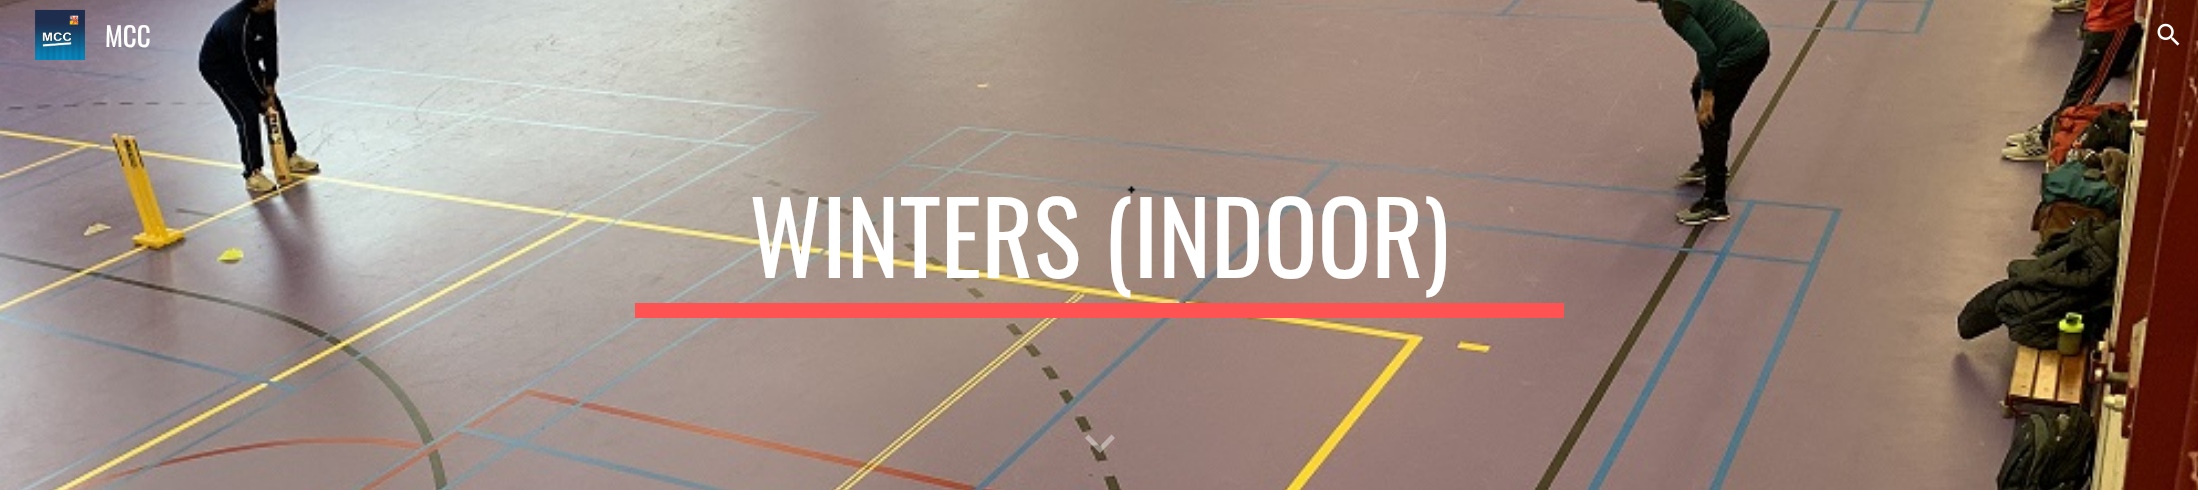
#include "include/core/SkBlurTypes.h"
#include "include/core/SkCanvas.h"
#include "include/core/SkData.h"
#include "include/core/SkFont.h"
#include "include/core/SkFontMgr.h"
#include "include/core/SkImage.h"
#include "include/core/SkMaskFilter.h"
#include "include/core/SkPaint.h"
#include "include/core/SkPathBuilder.h"
#include "include/core/SkTextBlob.h"
#include "include/effects/SkDashPathEffect.h"
#include "include/effects/SkGradientShader.h"
#include "include/utils/SkParsePath.h"

extern sk_sp<SkFontMgr> fontMgr;

void draw(SkCanvas* canvas) {
    SkPaint p;
    p.setAntiAlias(true);
    auto font = [&](const char* family, int weight, float size, bool italic = false) {
        SkFontStyle style(weight, SkFontStyle::kNormal_Width,
            italic ? SkFontStyle::kItalic_Slant : SkFontStyle::kUpright_Slant);
        SkFont result(fontMgr->matchFamilyStyle(family, style), size);
        result.setSubpixel(true);
        return result;
    };
    auto drawPhoto = [&](const char* path, float l, float t, float r, float b) {
        auto image = SkImages::DeferredFromEncodedData(SkData::MakeFromFileName(path));
        canvas->drawImageRect(image, SkRect::MakeLTRB(l, t, r, b), SkSamplingOptions());
    };
    canvas->clear(0xFFFFFFFF);
    drawPhoto("media/3.png", 0, 0, 2198, 490);
    drawPhoto("media/1.png", 35, 9, 85, 61);
    auto font1 = font("Oswald", 400, 27);
    p.setColor(0xFFFFFFFF);
    canvas->drawString("MCC", 105, 47, font1, p);
    drawPhoto("media/2.png", 2157, 23, 2180, 46);
    auto font2 = font("Oswald", 400, 100);
    canvas->drawString("WINTERS (INDOOR)", 749, 278, font2, p);
    p.setColor(0xFFFF5252);
    canvas->drawRect(SkRect::MakeLTRB(635, 303, 1564, 318), p);
    p.setColor(0x66FFFFFF);
    canvas->drawPath(SkPathBuilder().moveTo(1088.5f, 434.5f).lineTo(1100, 446).lineTo(1111.5f, 434.5f).lineTo(1115, 438).lineTo(1100, 453).lineTo(1085, 438).close().detach(), p);
}
